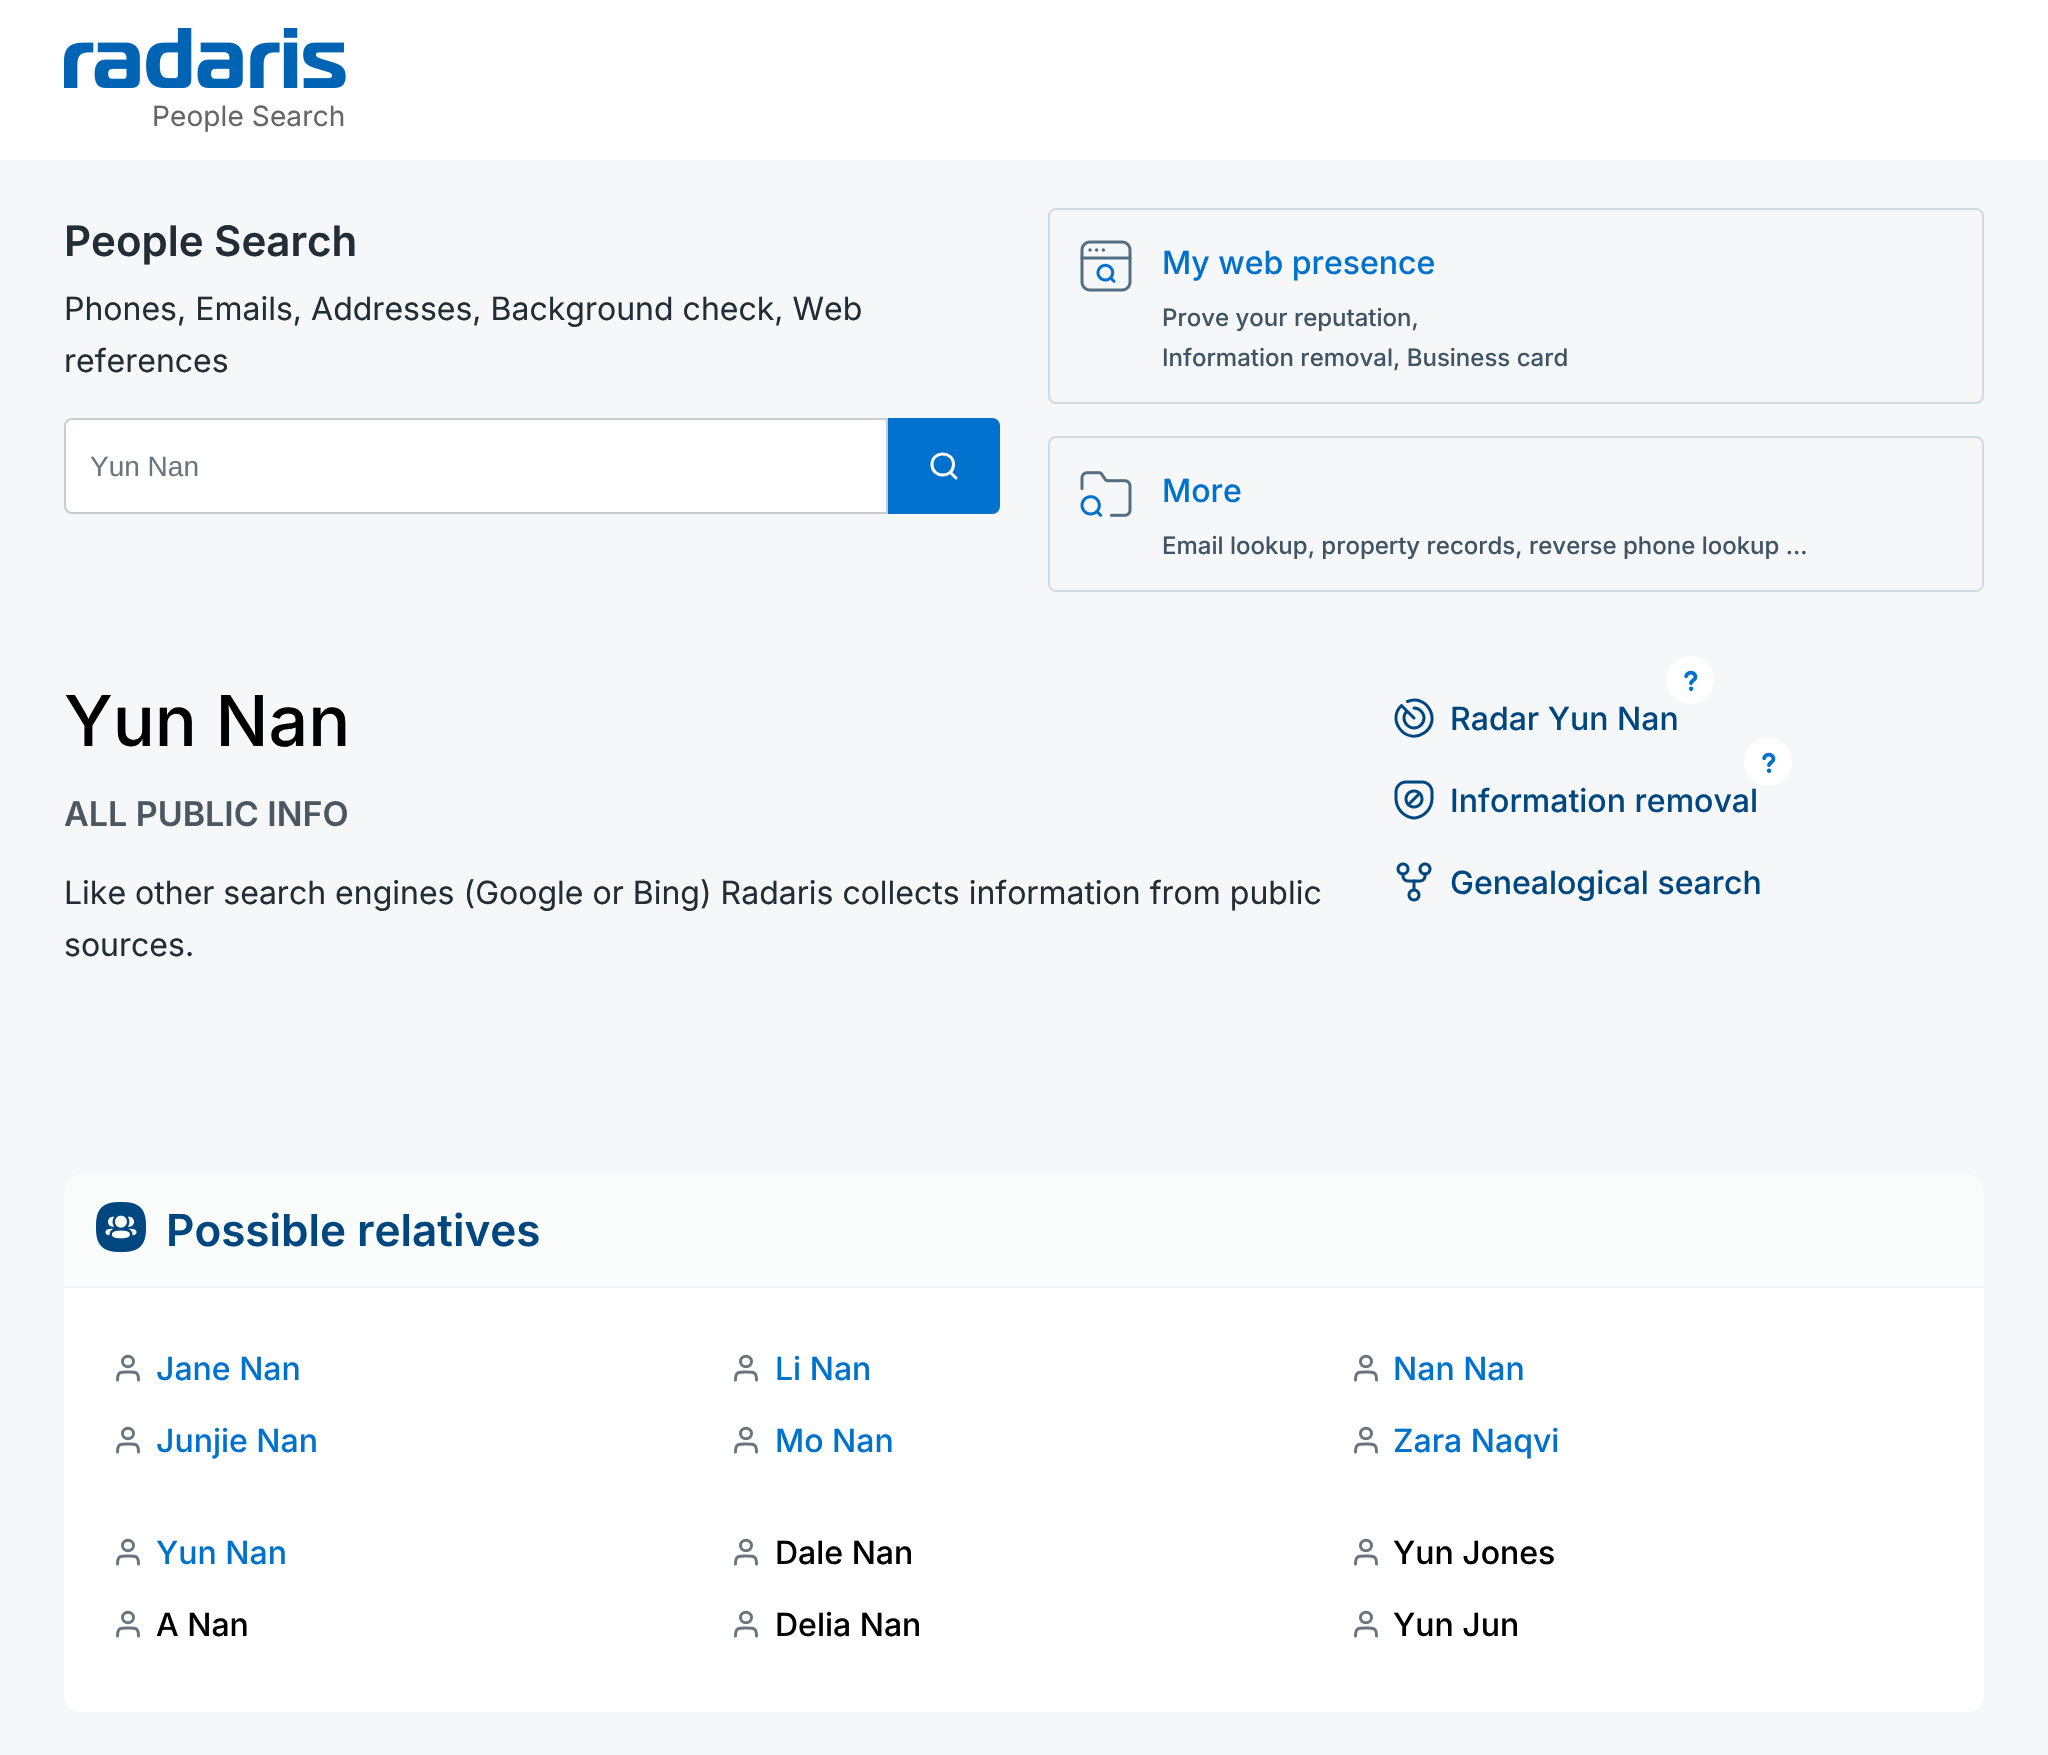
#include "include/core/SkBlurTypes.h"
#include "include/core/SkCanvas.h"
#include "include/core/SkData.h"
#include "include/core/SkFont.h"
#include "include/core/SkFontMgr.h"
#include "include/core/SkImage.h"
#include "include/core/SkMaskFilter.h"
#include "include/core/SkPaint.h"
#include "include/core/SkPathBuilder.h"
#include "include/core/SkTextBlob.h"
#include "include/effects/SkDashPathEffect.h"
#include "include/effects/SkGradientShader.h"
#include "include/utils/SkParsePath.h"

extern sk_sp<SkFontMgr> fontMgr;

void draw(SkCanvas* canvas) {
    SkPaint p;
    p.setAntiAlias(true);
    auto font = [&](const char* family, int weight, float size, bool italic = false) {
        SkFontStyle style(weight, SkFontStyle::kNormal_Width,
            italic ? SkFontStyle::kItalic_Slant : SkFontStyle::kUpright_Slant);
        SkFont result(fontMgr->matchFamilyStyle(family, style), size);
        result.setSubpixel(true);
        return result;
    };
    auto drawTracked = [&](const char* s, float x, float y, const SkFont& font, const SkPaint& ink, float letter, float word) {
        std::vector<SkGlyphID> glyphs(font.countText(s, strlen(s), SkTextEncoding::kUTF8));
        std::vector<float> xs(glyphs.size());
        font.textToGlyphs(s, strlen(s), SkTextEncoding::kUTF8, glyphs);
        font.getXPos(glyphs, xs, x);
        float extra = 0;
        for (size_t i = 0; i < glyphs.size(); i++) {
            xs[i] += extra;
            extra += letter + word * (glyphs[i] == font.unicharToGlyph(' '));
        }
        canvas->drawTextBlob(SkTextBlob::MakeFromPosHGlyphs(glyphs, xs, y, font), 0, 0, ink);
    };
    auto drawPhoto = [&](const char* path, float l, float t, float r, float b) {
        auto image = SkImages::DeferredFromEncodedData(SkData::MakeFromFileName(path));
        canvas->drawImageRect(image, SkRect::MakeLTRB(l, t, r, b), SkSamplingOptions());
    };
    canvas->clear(0xFFF5F7F8);
    p.setColor(0xFFFFFFFF);
    canvas->drawRect(SkRect::MakeLTRB(0, 0, 2048, 160), p);
    drawPhoto("media/1.png", 64, 28, 346, 88);
    auto font1 = font("Inter", 400, 28);
    p.setColor(0xFF666666);
    drawTracked("People Search", 152, 126, font1, p, 0.1f, 0);
    auto font2 = font("Inter", 600, 42);
    p.setColor(0xFF222D35);
    canvas->drawString("People Search", 64, 256, font2, p);
    auto font3 = font("Inter", 400, 32);
    canvas->drawString("Phones, Emails, Addresses, Background check, Web", 64, 320, font3, p);
    canvas->drawString("references", 64, 372, font3, p);
    p.setColor(0xFFFFFFFF);
    canvas->drawPath(SkPathBuilder().moveTo(72, 419).lineTo(887, 419).lineTo(887, 513).lineTo(72, 513).cubicTo(68, 513, 65, 510, 65, 506).lineTo(65, 426).cubicTo(65, 422, 68, 419, 72, 419).close().detach(), p);
    p.setStyle(SkPaint::kStroke_Style);
    p.setStrokeWidth(2);
    p.setColor(0xFFCACDD0);
    canvas->drawPath(SkPathBuilder().moveTo(72, 419).lineTo(887, 419).lineTo(887, 513).lineTo(72, 513).cubicTo(68, 513, 65, 510, 65, 506).lineTo(65, 426).cubicTo(65, 422, 68, 419, 72, 419).close().detach(), p);
    auto font4 = font("Liberation Sans", 400, 28);
    p.setStyle(SkPaint::kFill_Style);
    p.setColor(0xFF6B757D);
    canvas->drawString("Yun Nan", 90, 476, font4, p);
    p.setColor(0xFF0071CC);
    canvas->drawPath(SkPathBuilder().moveTo(888, 418).lineTo(992, 418).cubicTo(996.5f, 418, 1000, 421.5f, 1000, 426).lineTo(1000, 506).cubicTo(1000, 510.5f, 996.5f, 514, 992, 514).lineTo(888, 514).close().detach(), p);
    p.setStyle(SkPaint::kStroke_Style);
    p.setStrokeWidth(3);
    p.setStrokeCap(SkPaint::kRound_Cap);
    p.setStrokeJoin(SkPaint::kRound_Join);
    p.setColor(0xFFFFFFFF);
    canvas->drawPath(SkPathBuilder().moveTo(956, 478).lineTo(950, 472).moveTo(953.5f, 464.5f).cubicTo(953.5f, 478.5f, 932, 478.5f, 932, 464.5f).cubicTo(932, 450.5f, 953.5f, 450.5f, 953.5f, 464.5f).close().detach(), p);
    drawPhoto("media/2.png", 1080, 240, 1132, 292);
    p.setStrokeWidth(2);
    p.setStrokeCap(SkPaint::kButt_Cap);
    p.setStrokeJoin(SkPaint::kMiter_Join);
    p.setColor(0xFFD0DAE1);
    canvas->drawRoundRect(SkRect::MakeLTRB(1049, 209, 1983, 403), 7, 7, p);
    auto font5 = font("Inter", 500, 32);
    p.setStyle(SkPaint::kFill_Style);
    p.setColor(0xFF0071CC);
    canvas->drawString("My web presence", 1162, 274, font5, p);
    auto font6 = font("Inter", 500, 24);
    p.setColor(0xFF3F5464);
    canvas->drawString("Prove your reputation,", 1162, 326, font6, p);
    canvas->drawString("Information removal, Business card", 1162, 366, font6, p);
    drawPhoto("media/3.png", 1080, 471, 1132, 517);
    p.setStyle(SkPaint::kStroke_Style);
    p.setColor(0xFFD0DAE1);
    canvas->drawRoundRect(SkRect::MakeLTRB(1049, 437, 1983, 591), 7, 7, p);
    p.setStyle(SkPaint::kFill_Style);
    p.setColor(0xFF0071CC);
    canvas->drawString("More", 1162, 502, font5, p);
    p.setColor(0xFF3F5464);
    canvas->drawString("Email lookup, рroperty records, reverse phone lookup ...", 1162, 554, font6, p);
    auto font7 = font("Inter", 500, 70);
    p.setColor(0xFF000000);
    canvas->drawString("Yun Nan", 64, 746, font7, p);
    auto font8 = font("Inter", 600, 34);
    p.setColor(0xFF4C5861);
    canvas->drawString("ALL PUBLIC INFO", 64, 826, font8, p);
    p.setColor(0xFF222D35);
    canvas->drawString("Like other search engines (Google or Bing) Radaris collects information from public", 64, 904, font3, p);
    canvas->drawString("sources.", 64, 956, font3, p);
    p.setColor(0xFFFFFFFF);
    canvas->drawCircle(1690, 680, 24, p);
    drawPhoto("media/4.png", 1684, 670, 1698, 691);
    p.setStyle(SkPaint::kStroke_Style);
    p.setStrokeWidth(3);
    p.setStrokeCap(SkPaint::kRound_Cap);
    p.setStrokeJoin(SkPaint::kRound_Join);
    p.setColor(0xFF00477F);
    canvas->drawPath(SkPathBuilder().moveTo(1407, 711).cubicTo(1403, 715, 1403, 721, 1407, 725).cubicTo(1411, 729, 1417, 729, 1421, 725).cubicTo(1425, 721, 1425, 715, 1421, 711).cubicTo(1419, 709, 1416.5f, 708, 1414, 708).moveTo(1401.5f, 705.5f).cubicTo(1386, 720.5f, 1406, 745, 1424, 733).cubicTo(1442, 721, 1427, 693.5f, 1407.5f, 701.5f).moveTo(1401.5f, 705.5f).lineTo(1414, 718).detach(), p);
    p.setStyle(SkPaint::kFill_Style);
    canvas->drawString("Radar Yun Nan", 1450, 730, font5, p);
    p.setColor(0xFFFFFFFF);
    canvas->drawCircle(1768, 762, 24, p);
    drawPhoto("media/4.png", 1762, 752, 1776, 773);
    drawPhoto("media/5.png", 1394, 780, 1434, 820);
    p.setColor(0xFF00477F);
    canvas->drawString("Information removal", 1450, 812, font5, p);
    drawPhoto("media/6.png", 1396, 862, 1432, 902);
    canvas->drawString("Genealogical search", 1450, 894, font5, p);
    p.setColor(0xFFFAFBFB);
    canvas->drawPath(SkPathBuilder().moveTo(80, 1174).lineTo(1968, 1174).cubicTo(1977, 1174, 1984, 1181, 1984, 1190).lineTo(1984, 1288).lineTo(64, 1288).lineTo(64, 1190).cubicTo(64, 1181, 71, 1174, 80, 1174).close().detach(), p);
    drawPhoto("media/7.png", 96, 1202, 146, 1252);
    p.setColor(0xFFEFF2F5);
    canvas->drawRect(SkRect::MakeLTRB(64, 1286, 1984, 1288), p);
    auto font9 = font("Inter", 600, 44);
    p.setColor(0xFF00477F);
    canvas->drawString("Possible relatives", 166, 1246, font9, p);
    p.setColor(0xFFFFFFFF);
    canvas->drawPath(SkPathBuilder().moveTo(64, 1288).lineTo(1984, 1288).lineTo(1984, 1696).cubicTo(1984, 1705, 1977, 1712, 1968, 1712).lineTo(80, 1712).cubicTo(71, 1712, 64, 1705, 64, 1696).close().detach(), p);
    p.setStyle(SkPaint::kStroke_Style);
    p.setColor(0xFF6B757D);
    canvas->drawPath(SkPathBuilder().moveTo(138.5f, 1380).cubicTo(138.5f, 1371.5f, 135.5f, 1372, 128, 1372).cubicTo(120.5f, 1372, 117.5f, 1371.5f, 117.5f, 1380).moveTo(133.5f, 1361.5f).cubicTo(133.5f, 1368.5f, 122.5f, 1368.5f, 122.5f, 1361.5f).cubicTo(122.5f, 1354.5f, 133.5f, 1354.5f, 133.5f, 1361.5f).close().detach(), p);
    p.setStyle(SkPaint::kFill_Style);
    p.setColor(0xFF0071CC);
    canvas->drawString("Jane Nan", 156, 1380, font5, p);
    p.setStyle(SkPaint::kStroke_Style);
    p.setColor(0xFF6B757D);
    canvas->drawPath(SkPathBuilder().moveTo(756.5f, 1380).cubicTo(756.5f, 1371.5f, 753.5f, 1372, 746, 1372).cubicTo(738.5f, 1372, 735.5f, 1371.5f, 735.5f, 1380).moveTo(751.5f, 1361.5f).cubicTo(751.5f, 1368.5f, 740.5f, 1368.5f, 740.5f, 1361.5f).cubicTo(740.5f, 1354.5f, 751.5f, 1354.5f, 751.5f, 1361.5f).close().detach(), p);
    p.setStyle(SkPaint::kFill_Style);
    p.setColor(0xFF0071CC);
    canvas->drawString("Li Nan", 775, 1380, font5, p);
    p.setStyle(SkPaint::kStroke_Style);
    p.setColor(0xFF6B757D);
    canvas->drawPath(SkPathBuilder().moveTo(1376.5f, 1380).cubicTo(1376.5f, 1371.5f, 1373.5f, 1372, 1366, 1372).cubicTo(1358.5f, 1372, 1355.5f, 1371.5f, 1355.5f, 1380).moveTo(1371.5f, 1361.5f).cubicTo(1371.5f, 1368.5f, 1360.5f, 1368.5f, 1360.5f, 1361.5f).cubicTo(1360.5f, 1354.5f, 1371.5f, 1354.5f, 1371.5f, 1361.5f).close().detach(), p);
    p.setStyle(SkPaint::kFill_Style);
    p.setColor(0xFF0071CC);
    canvas->drawString("Nan Nan", 1393, 1380, font5, p);
    p.setStyle(SkPaint::kStroke_Style);
    p.setColor(0xFF6B757D);
    canvas->drawPath(SkPathBuilder().moveTo(138.5f, 1452).cubicTo(138.5f, 1443.5f, 135.5f, 1444, 128, 1444).cubicTo(120.5f, 1444, 117.5f, 1443.5f, 117.5f, 1452).moveTo(133.5f, 1433.5f).cubicTo(133.5f, 1440.5f, 122.5f, 1440.5f, 122.5f, 1433.5f).cubicTo(122.5f, 1426.5f, 133.5f, 1426.5f, 133.5f, 1433.5f).close().detach(), p);
    p.setStyle(SkPaint::kFill_Style);
    p.setColor(0xFF0071CC);
    canvas->drawString("Junjie Nan", 156, 1452, font5, p);
    p.setStyle(SkPaint::kStroke_Style);
    p.setColor(0xFF6B757D);
    canvas->drawPath(SkPathBuilder().moveTo(756.5f, 1452).cubicTo(756.5f, 1443.5f, 753.5f, 1444, 746, 1444).cubicTo(738.5f, 1444, 735.5f, 1443.5f, 735.5f, 1452).moveTo(751.5f, 1433.5f).cubicTo(751.5f, 1440.5f, 740.5f, 1440.5f, 740.5f, 1433.5f).cubicTo(740.5f, 1426.5f, 751.5f, 1426.5f, 751.5f, 1433.5f).close().detach(), p);
    p.setStyle(SkPaint::kFill_Style);
    p.setColor(0xFF0071CC);
    canvas->drawString("Mo Nan", 775, 1452, font5, p);
    p.setStyle(SkPaint::kStroke_Style);
    p.setColor(0xFF6B757D);
    canvas->drawPath(SkPathBuilder().moveTo(1376.5f, 1452).cubicTo(1376.5f, 1443.5f, 1373.5f, 1444, 1366, 1444).cubicTo(1358.5f, 1444, 1355.5f, 1443.5f, 1355.5f, 1452).moveTo(1371.5f, 1433.5f).cubicTo(1371.5f, 1440.5f, 1360.5f, 1440.5f, 1360.5f, 1433.5f).cubicTo(1360.5f, 1426.5f, 1371.5f, 1426.5f, 1371.5f, 1433.5f).close().detach(), p);
    p.setStyle(SkPaint::kFill_Style);
    p.setColor(0xFF0071CC);
    canvas->drawString("Zara Naqvi", 1393, 1452, font5, p);
    p.setStyle(SkPaint::kStroke_Style);
    p.setColor(0xFF6B757D);
    canvas->drawPath(SkPathBuilder().moveTo(138.5f, 1564).cubicTo(138.5f, 1555.5f, 135.5f, 1556, 128, 1556).cubicTo(120.5f, 1556, 117.5f, 1555.5f, 117.5f, 1564).moveTo(133.5f, 1545.5f).cubicTo(133.5f, 1552.5f, 122.5f, 1552.5f, 122.5f, 1545.5f).cubicTo(122.5f, 1538.5f, 133.5f, 1538.5f, 133.5f, 1545.5f).close().detach(), p);
    p.setStyle(SkPaint::kFill_Style);
    p.setColor(0xFF0071CC);
    canvas->drawString("Yun Nan", 156, 1564, font5, p);
    p.setStyle(SkPaint::kStroke_Style);
    p.setColor(0xFF6B757D);
    canvas->drawPath(SkPathBuilder().moveTo(756.5f, 1564).cubicTo(756.5f, 1555.5f, 753.5f, 1556, 746, 1556).cubicTo(738.5f, 1556, 735.5f, 1555.5f, 735.5f, 1564).moveTo(751.5f, 1545.5f).cubicTo(751.5f, 1552.5f, 740.5f, 1552.5f, 740.5f, 1545.5f).cubicTo(740.5f, 1538.5f, 751.5f, 1538.5f, 751.5f, 1545.5f).close().detach(), p);
    p.setStyle(SkPaint::kFill_Style);
    p.setColor(0xFF000000);
    canvas->drawString("Dale Nan", 775, 1564, font5, p);
    p.setStyle(SkPaint::kStroke_Style);
    p.setColor(0xFF6B757D);
    canvas->drawPath(SkPathBuilder().moveTo(1376.5f, 1564).cubicTo(1376.5f, 1555.5f, 1373.5f, 1556, 1366, 1556).cubicTo(1358.5f, 1556, 1355.5f, 1555.5f, 1355.5f, 1564).moveTo(1371.5f, 1545.5f).cubicTo(1371.5f, 1552.5f, 1360.5f, 1552.5f, 1360.5f, 1545.5f).cubicTo(1360.5f, 1538.5f, 1371.5f, 1538.5f, 1371.5f, 1545.5f).close().detach(), p);
    p.setStyle(SkPaint::kFill_Style);
    p.setColor(0xFF000000);
    canvas->drawString("Yun Jones", 1393, 1564, font5, p);
    p.setStyle(SkPaint::kStroke_Style);
    p.setColor(0xFF6B757D);
    canvas->drawPath(SkPathBuilder().moveTo(138.5f, 1636).cubicTo(138.5f, 1627.5f, 135.5f, 1628, 128, 1628).cubicTo(120.5f, 1628, 117.5f, 1627.5f, 117.5f, 1636).moveTo(133.5f, 1617.5f).cubicTo(133.5f, 1624.5f, 122.5f, 1624.5f, 122.5f, 1617.5f).cubicTo(122.5f, 1610.5f, 133.5f, 1610.5f, 133.5f, 1617.5f).close().detach(), p);
    p.setStyle(SkPaint::kFill_Style);
    p.setColor(0xFF000000);
    canvas->drawString("A Nan", 156, 1636, font5, p);
    p.setStyle(SkPaint::kStroke_Style);
    p.setColor(0xFF6B757D);
    canvas->drawPath(SkPathBuilder().moveTo(756.5f, 1636).cubicTo(756.5f, 1627.5f, 753.5f, 1628, 746, 1628).cubicTo(738.5f, 1628, 735.5f, 1627.5f, 735.5f, 1636).moveTo(751.5f, 1617.5f).cubicTo(751.5f, 1624.5f, 740.5f, 1624.5f, 740.5f, 1617.5f).cubicTo(740.5f, 1610.5f, 751.5f, 1610.5f, 751.5f, 1617.5f).close().detach(), p);
    p.setStyle(SkPaint::kFill_Style);
    p.setColor(0xFF000000);
    canvas->drawString("Delia Nan", 775, 1636, font5, p);
    p.setStyle(SkPaint::kStroke_Style);
    p.setColor(0xFF6B757D);
    canvas->drawPath(SkPathBuilder().moveTo(1376.5f, 1636).cubicTo(1376.5f, 1627.5f, 1373.5f, 1628, 1366, 1628).cubicTo(1358.5f, 1628, 1355.5f, 1627.5f, 1355.5f, 1636).moveTo(1371.5f, 1617.5f).cubicTo(1371.5f, 1624.5f, 1360.5f, 1624.5f, 1360.5f, 1617.5f).cubicTo(1360.5f, 1610.5f, 1371.5f, 1610.5f, 1371.5f, 1617.5f).close().detach(), p);
    p.setStyle(SkPaint::kFill_Style);
    p.setColor(0xFF000000);
    canvas->drawString("Yun Jun", 1393, 1636, font5, p);
}
